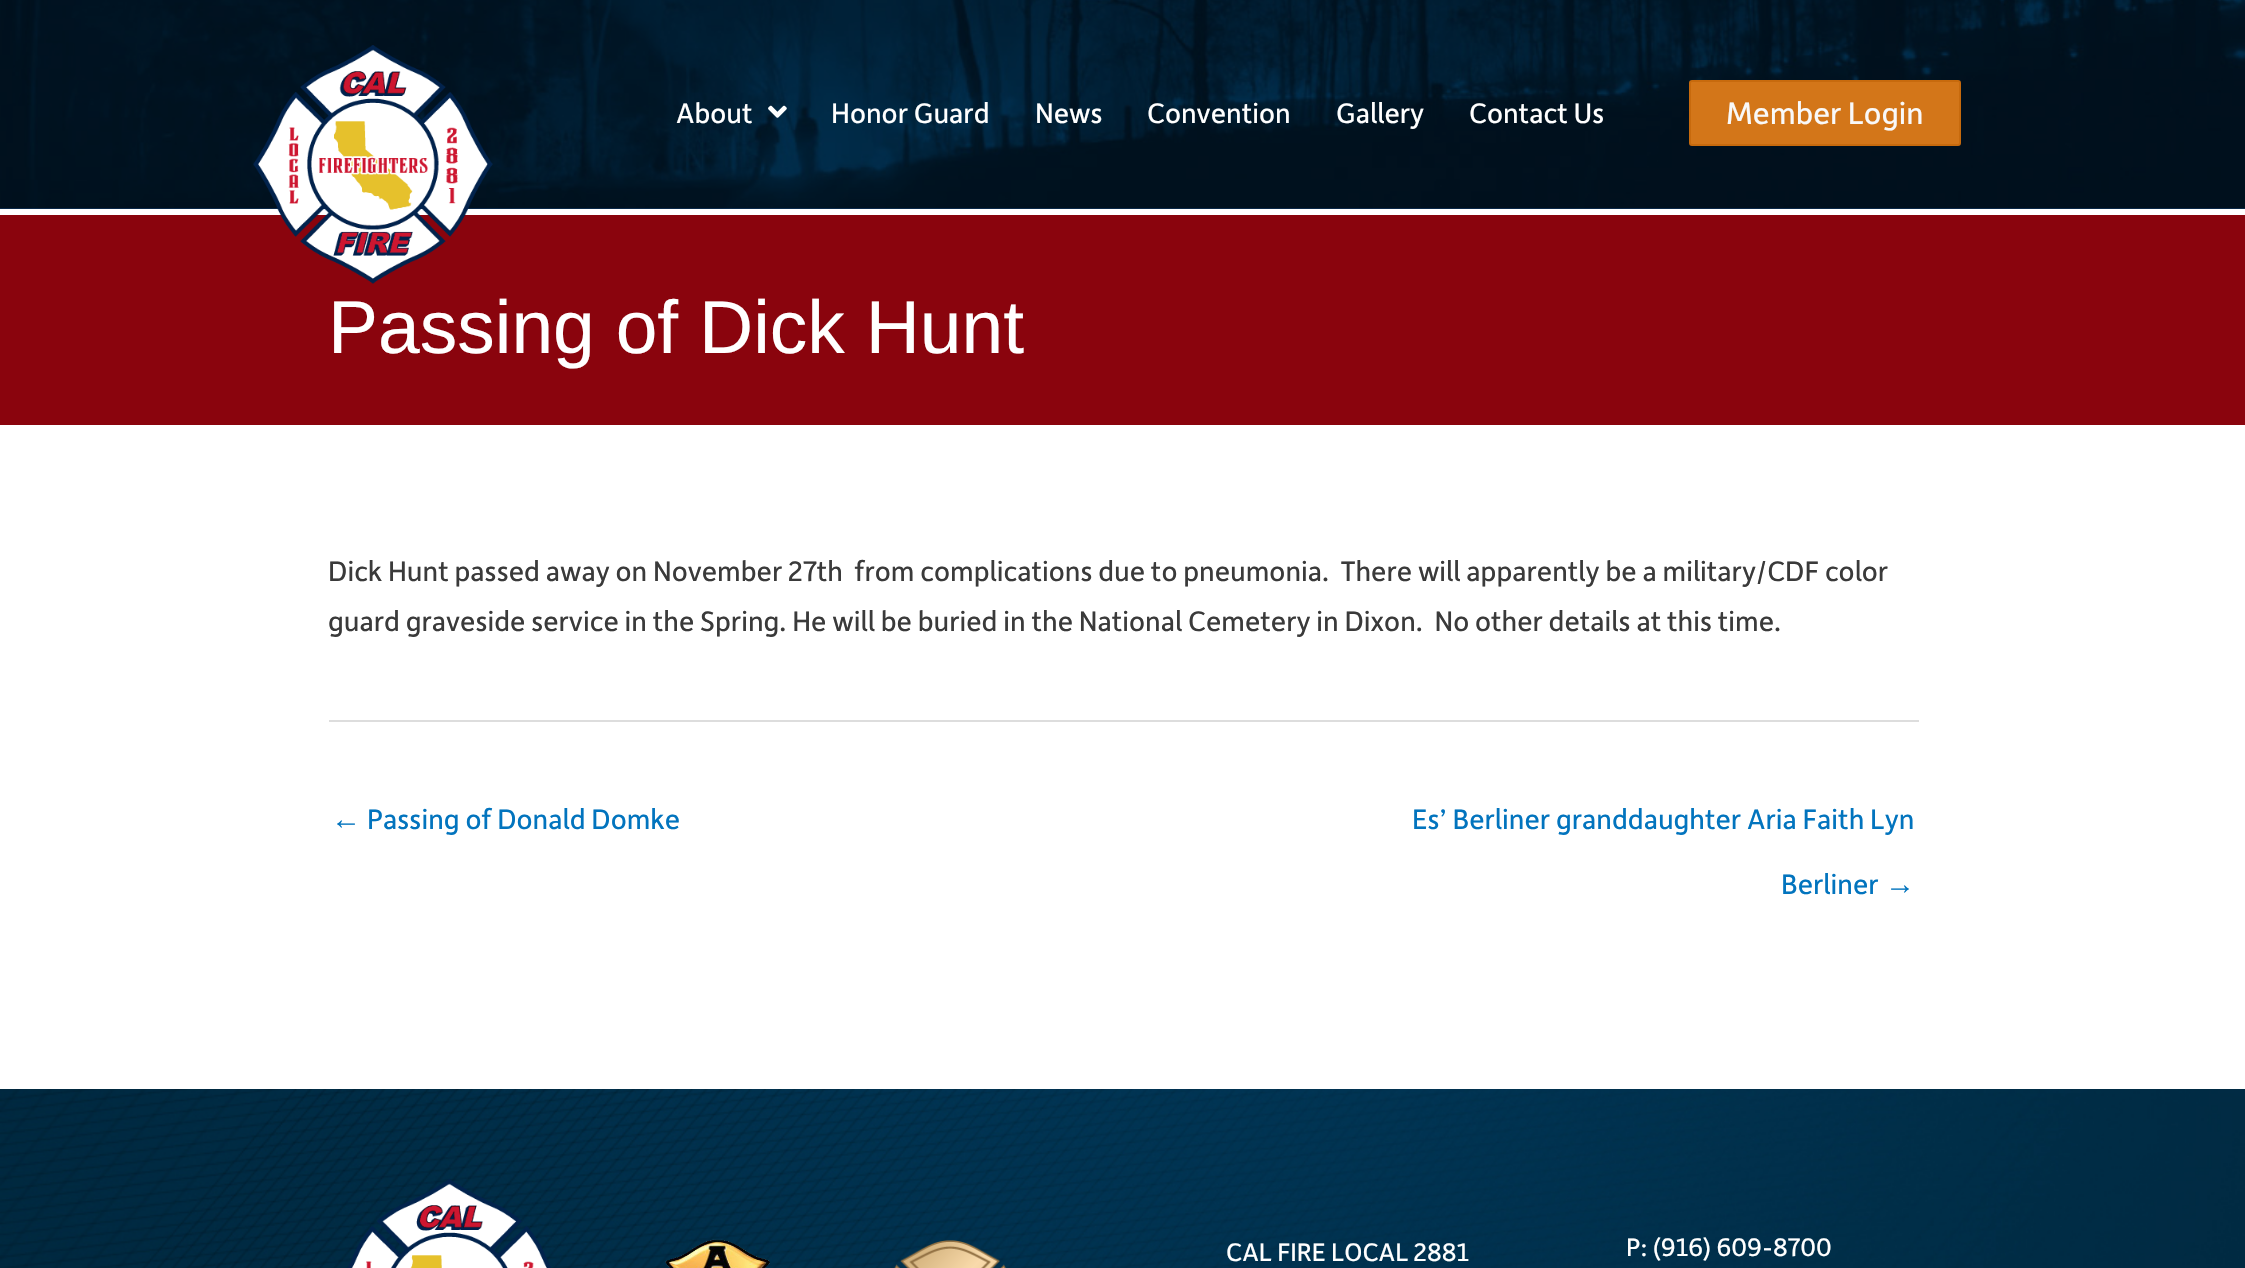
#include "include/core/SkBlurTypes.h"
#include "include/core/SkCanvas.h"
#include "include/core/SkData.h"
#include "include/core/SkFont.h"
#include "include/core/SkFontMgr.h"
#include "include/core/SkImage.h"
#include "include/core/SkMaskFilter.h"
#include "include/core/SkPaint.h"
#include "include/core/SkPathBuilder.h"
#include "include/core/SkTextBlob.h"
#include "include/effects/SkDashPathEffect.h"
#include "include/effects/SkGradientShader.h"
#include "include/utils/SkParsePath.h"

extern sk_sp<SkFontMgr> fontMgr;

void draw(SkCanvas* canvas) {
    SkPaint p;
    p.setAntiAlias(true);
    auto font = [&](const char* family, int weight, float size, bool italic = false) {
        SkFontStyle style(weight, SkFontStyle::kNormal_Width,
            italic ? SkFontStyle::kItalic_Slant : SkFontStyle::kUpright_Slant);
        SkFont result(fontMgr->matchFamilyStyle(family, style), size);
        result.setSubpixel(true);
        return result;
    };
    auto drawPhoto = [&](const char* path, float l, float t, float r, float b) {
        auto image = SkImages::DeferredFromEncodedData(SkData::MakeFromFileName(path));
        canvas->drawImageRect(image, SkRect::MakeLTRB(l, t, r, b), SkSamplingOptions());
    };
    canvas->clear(0xFFFFFFFF);
    p.setColor(0xFF123D72);
    canvas->drawRect(SkRect::MakeLTRB(0, 208, 2245, 209), p);
    drawPhoto("media/1.png", 0, 0, 2245, 209);
    p.setColor(0xFF8A040D);
    canvas->drawRect(SkRect::MakeLTRB(0, 215, 2245, 425), p);
    drawPhoto("media/2.png", 253, 45, 493, 284);
    auto font1 = font("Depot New", 400, 30);
    p.setColor(0xFFFFFFFF);
    canvas->drawString("About", 676, 123, font1, p);
    drawPhoto("media/3.png", 768, 105, 787, 118);
    {
        const struct { const char* s; float x, y; } items[] = {
            {"Honor Guard", 831, 123},
            {"News", 1035, 123},
            {"Convention", 1147, 123},
            {"Gallery", 1336, 123},
            {"Contact Us", 1469, 123},
        };
        for (auto [s, x, y] : items) {
            canvas->drawString(s, x, y, font1, p);
        }
    }
    p.setColor(0xFFD37619);
    canvas->drawRoundRect(SkRect::MakeLTRB(1690, 81, 1960, 145), 2, 2, p);
    p.setStyle(SkPaint::kStroke_Style);
    p.setStrokeWidth(2);
    p.setColor(0xFFC76A0D);
    canvas->drawRoundRect(SkRect::MakeLTRB(1690, 81, 1960, 145), 2, 2, p);
    auto font2 = font("Depot New", 400, 33);
    p.setStyle(SkPaint::kFill_Style);
    p.setColor(0xFFF9F9F9);
    canvas->drawString("Member Login", 1726, 124, font2, p);
    auto font3 = font("Liberation Sans", 400, 75);
    p.setColor(0xFFFFFFFF);
    canvas->drawString("Passing of Dick Hunt", 328, 353, font3, p);
    p.setColor(0xFF3A3A3A);
    canvas->drawString("Dick Hunt passed away on November 27th  from complications due to pneumonia.  There will apparently be a military/CDF color", 328, 581, font1, p);
    canvas->drawString("guard graveside service in the Spring. He will be buried in the National Cemetery in Dixon.  No other details at this time.", 328, 631, font1, p);
    p.setColor(0xFFDDDDDD);
    canvas->drawRect(SkRect::MakeLTRB(329, 720, 1919, 722), p);
    auto font4 = font("Liberation Sans", 400, 30);
    p.setColor(0xFF0274BE);
    canvas->drawString("←", 331, 829, font4, p);
    {
        const struct { const char* s; float x, y; } items[] = {
            {"Passing of Donald Domke", 367, 829},
            {"Es’ Berliner granddaughter Aria Faith Lyn", 1412, 829},
            {"Berliner", 1781, 894},
        };
        for (auto [s, x, y] : items) {
            canvas->drawString(s, x, y, font1, p);
        }
    }
    canvas->drawString("→", 1885, 894, font4, p);
    drawPhoto("media/4.png", 0, 1089, 2245, 1268);
    drawPhoto("media/5.png", 347, 1179, 551, 1268);
    drawPhoto("media/6.png", 665, 1239, 770, 1268);
    drawPhoto("media/7.png", 894, 1240, 1006, 1268);
    auto font5 = font("Depot New", 400, 27);
    p.setColor(0xFFFFFFFF);
    canvas->drawString("CAL FIRE LOCAL 2881", 1226, 1261, font5, p);
    canvas->drawString("P: (916) 609-8700", 1626, 1256, font5, p);
}
